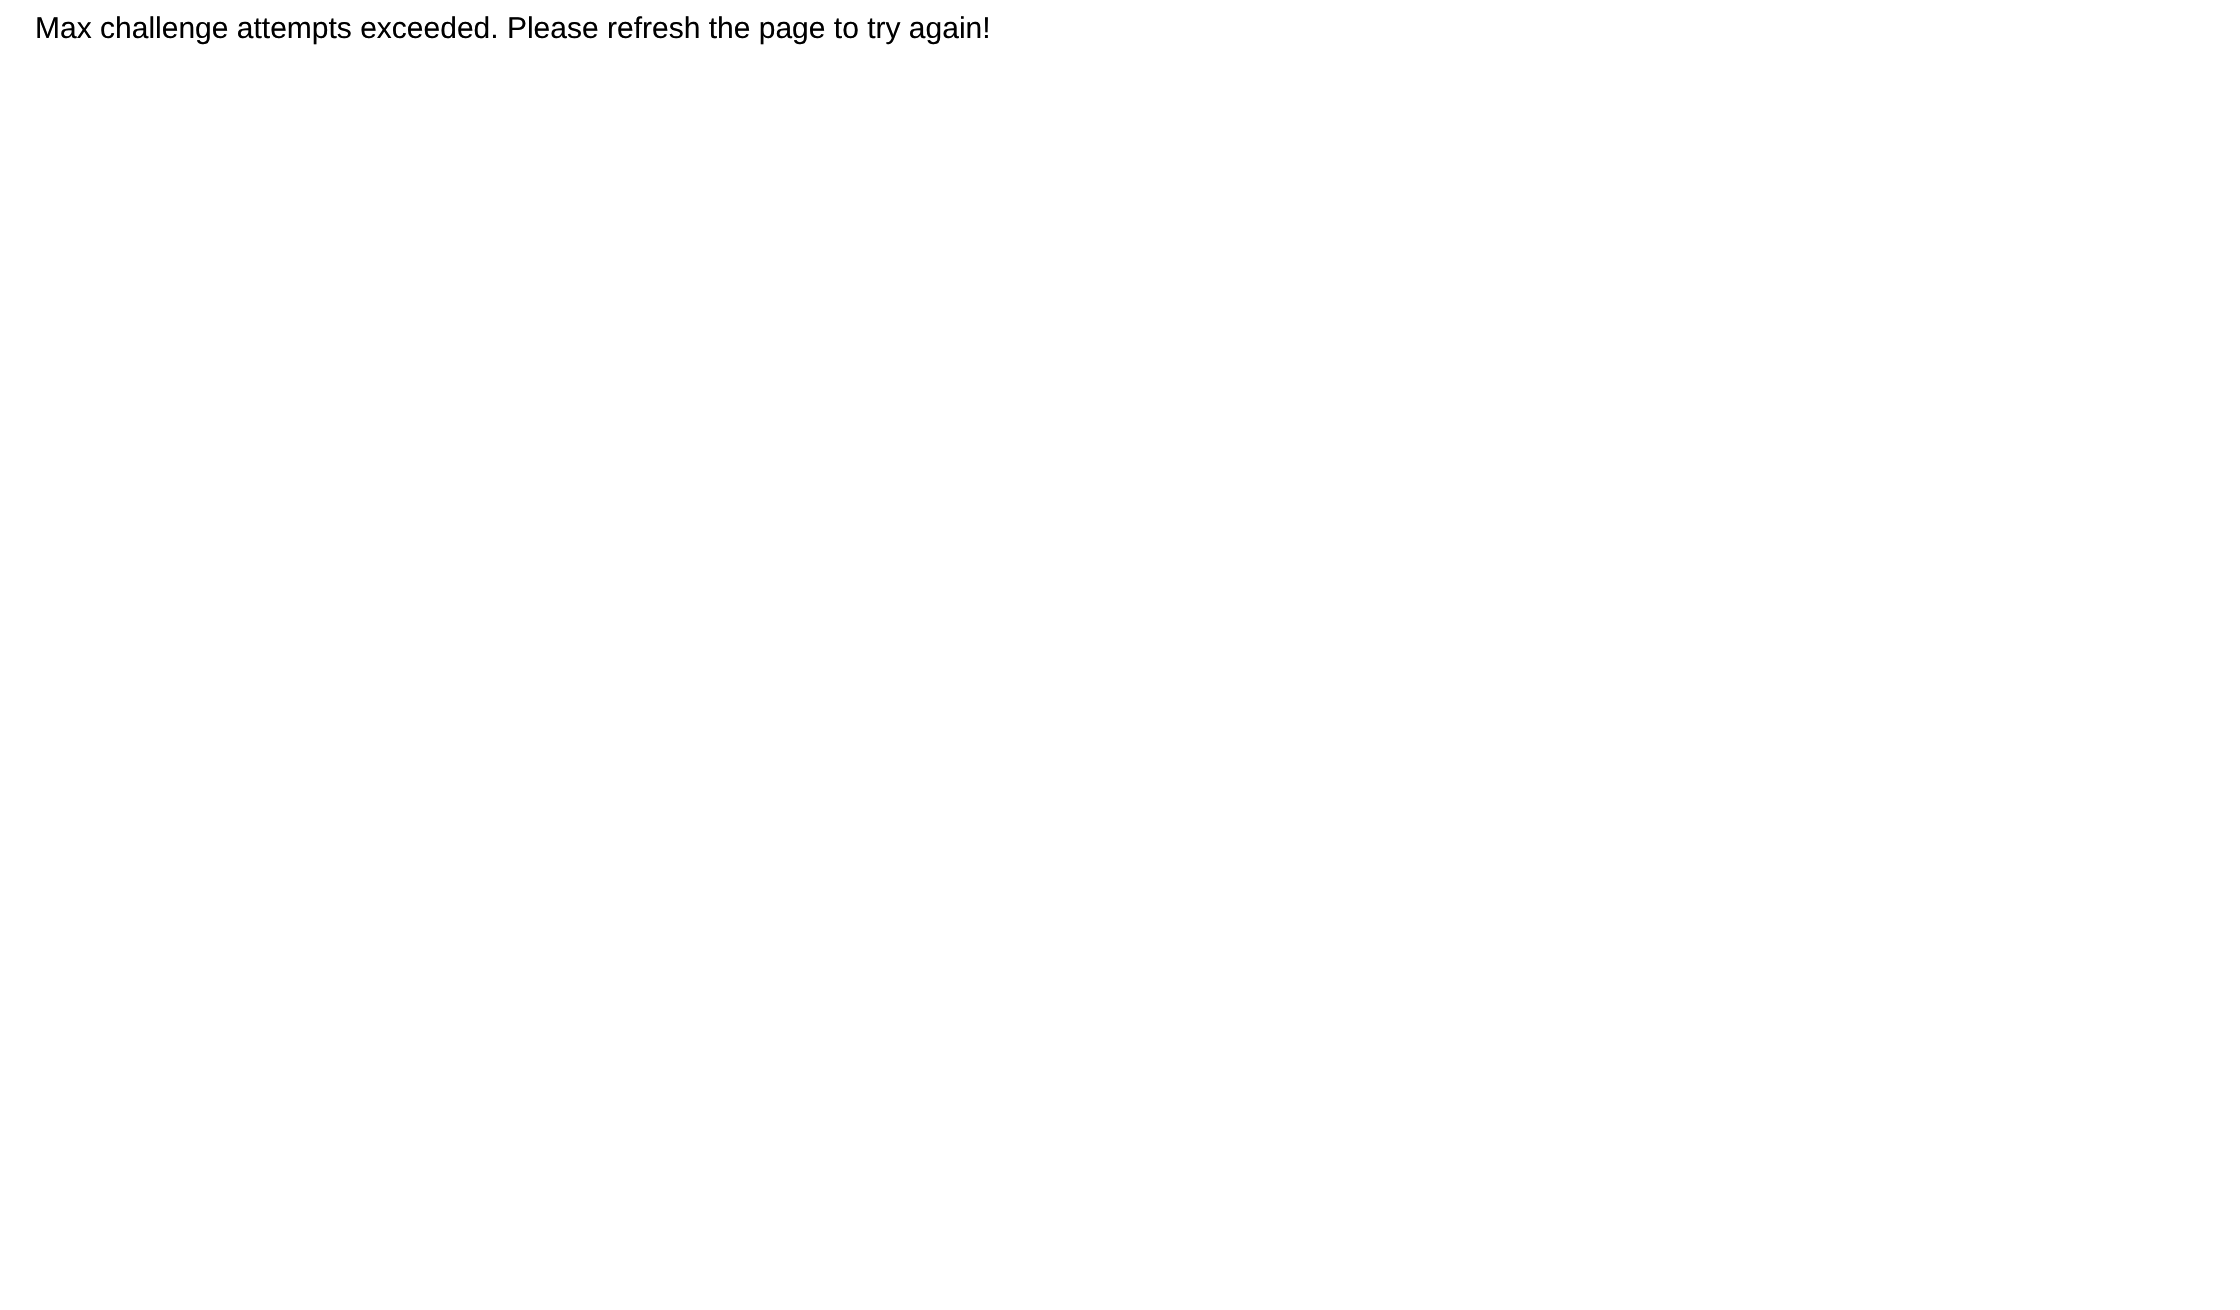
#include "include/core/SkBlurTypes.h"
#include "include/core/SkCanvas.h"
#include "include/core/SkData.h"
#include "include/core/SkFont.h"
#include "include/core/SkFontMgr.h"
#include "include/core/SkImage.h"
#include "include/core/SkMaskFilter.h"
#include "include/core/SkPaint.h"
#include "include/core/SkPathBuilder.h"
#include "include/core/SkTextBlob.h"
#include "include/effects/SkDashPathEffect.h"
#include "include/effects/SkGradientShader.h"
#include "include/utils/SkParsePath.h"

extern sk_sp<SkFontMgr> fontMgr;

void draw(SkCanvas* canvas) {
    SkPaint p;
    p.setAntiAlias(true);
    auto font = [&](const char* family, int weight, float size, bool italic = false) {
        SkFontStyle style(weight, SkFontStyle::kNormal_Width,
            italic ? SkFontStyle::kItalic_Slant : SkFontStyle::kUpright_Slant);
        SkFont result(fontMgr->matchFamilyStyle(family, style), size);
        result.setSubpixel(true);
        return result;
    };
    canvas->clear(0xFFFFFFFF);
    auto font1 = font("Liberation Sans", 400, 30);
    p.setColor(0xFF000000);
    canvas->drawString("Max challenge attempts exceeded. Please refresh the page to try again!", 35, 38, font1, p);
}
